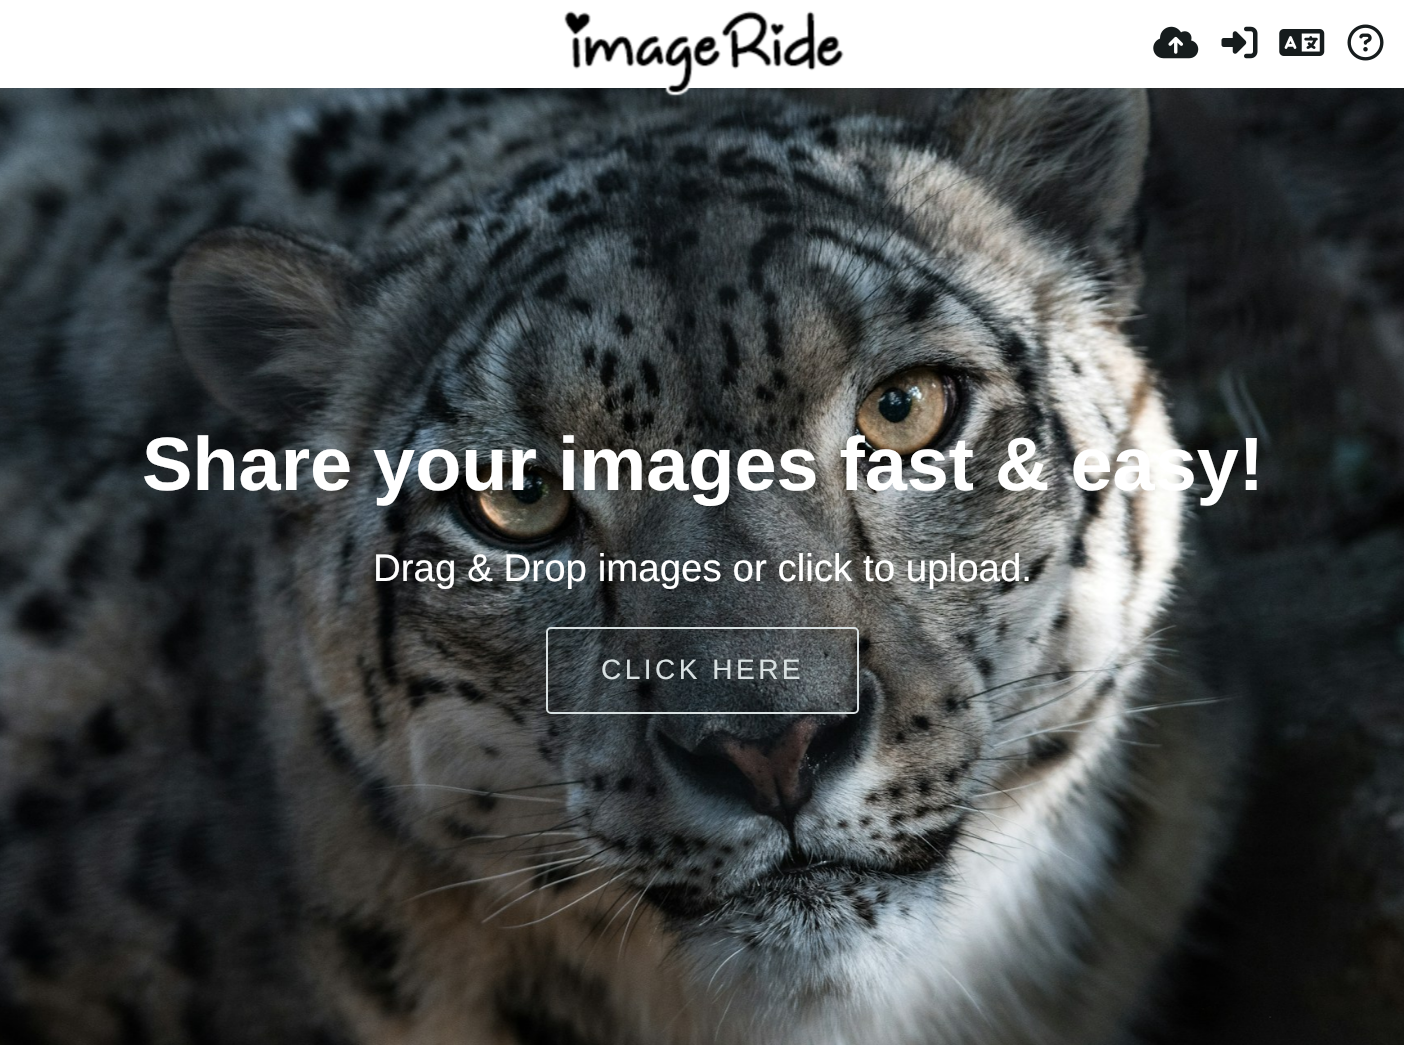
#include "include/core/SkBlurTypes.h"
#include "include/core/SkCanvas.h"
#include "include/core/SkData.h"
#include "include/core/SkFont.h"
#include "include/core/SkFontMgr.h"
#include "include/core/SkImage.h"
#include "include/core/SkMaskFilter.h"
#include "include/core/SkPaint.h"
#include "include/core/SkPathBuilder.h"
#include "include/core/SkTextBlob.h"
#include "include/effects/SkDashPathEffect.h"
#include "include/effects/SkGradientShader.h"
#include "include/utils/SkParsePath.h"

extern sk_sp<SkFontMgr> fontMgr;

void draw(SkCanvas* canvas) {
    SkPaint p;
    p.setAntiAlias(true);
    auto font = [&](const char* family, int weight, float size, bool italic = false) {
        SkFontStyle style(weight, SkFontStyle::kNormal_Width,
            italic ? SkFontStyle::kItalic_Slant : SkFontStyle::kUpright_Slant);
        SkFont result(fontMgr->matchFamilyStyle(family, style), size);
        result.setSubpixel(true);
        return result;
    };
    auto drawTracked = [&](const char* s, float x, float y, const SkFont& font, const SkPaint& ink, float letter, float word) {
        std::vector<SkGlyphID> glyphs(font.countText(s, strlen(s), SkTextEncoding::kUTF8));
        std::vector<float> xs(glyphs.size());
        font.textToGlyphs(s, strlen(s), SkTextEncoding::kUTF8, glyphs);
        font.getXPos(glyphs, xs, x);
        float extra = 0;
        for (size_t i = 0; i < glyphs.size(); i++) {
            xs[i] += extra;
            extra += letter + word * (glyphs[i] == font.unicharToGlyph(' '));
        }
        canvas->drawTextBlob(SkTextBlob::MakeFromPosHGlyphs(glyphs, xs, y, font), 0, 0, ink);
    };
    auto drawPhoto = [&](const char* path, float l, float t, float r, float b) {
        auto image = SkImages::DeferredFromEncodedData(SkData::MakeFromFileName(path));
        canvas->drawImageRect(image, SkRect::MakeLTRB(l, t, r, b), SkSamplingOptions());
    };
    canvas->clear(0xFFFFFFFF);
    drawPhoto("media/6.png", 0, 88, 1404, 1045);
    drawPhoto("media/1.png", 564, 11, 844, 96);
    drawPhoto("media/2.png", 1153, 26, 1199, 59);
    drawPhoto("media/3.png", 1221, 26, 1258, 59);
    drawPhoto("media/4.png", 1279, 29, 1325, 56);
    drawPhoto("media/5.png", 1347, 24, 1384, 61);
    auto font1 = font("Liberation Sans", 700, 75.6f);
    p.setColor(0xFFFFFFFF);
    canvas->drawString("Share your images fast & easy!", 142, 490, font1, p);
    auto font2 = font("Liberation Sans", 400, 38.5f);
    canvas->drawString("Drag & Drop images or click to upload.", 373, 581, font2, p);
    p.setStyle(SkPaint::kStroke_Style);
    p.setStrokeWidth(2);
    p.setColor(0xFFD9E1E2);
    canvas->drawRoundRect(SkRect::MakeLTRB(547, 628, 858, 713), 4, 4, p);
    auto font3 = font("Liberation Sans", 400, 28);
    p.setStyle(SkPaint::kFill_Style);
    drawTracked("CLICK HERE", 601, 679, font3, p, 3.5f, 0);
}
